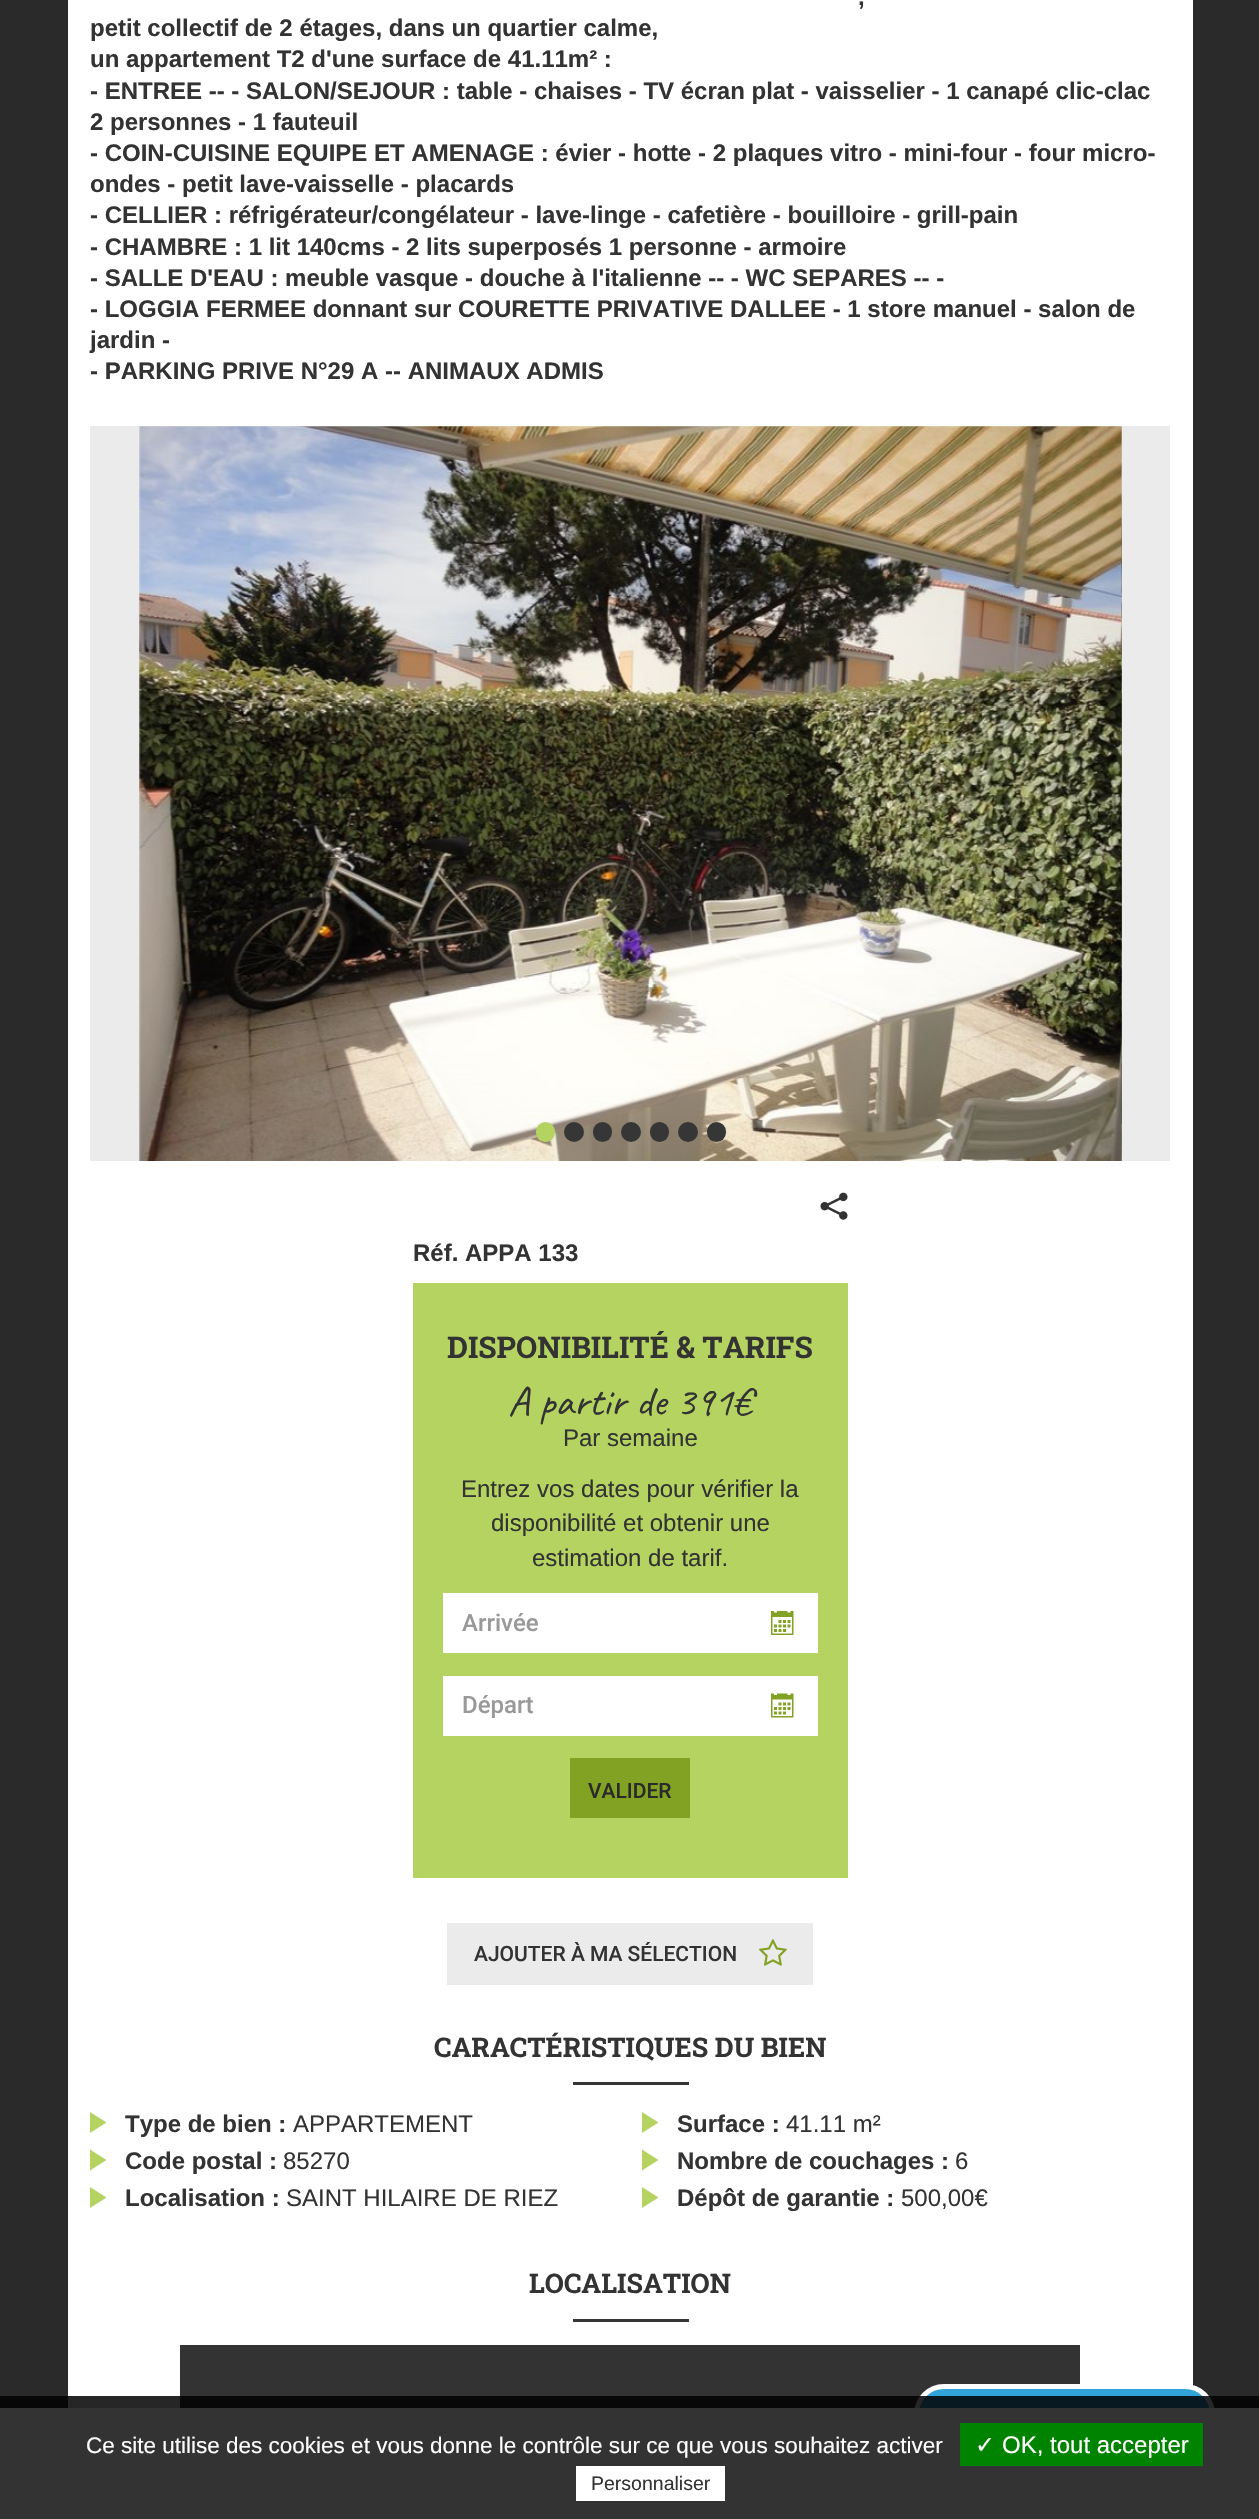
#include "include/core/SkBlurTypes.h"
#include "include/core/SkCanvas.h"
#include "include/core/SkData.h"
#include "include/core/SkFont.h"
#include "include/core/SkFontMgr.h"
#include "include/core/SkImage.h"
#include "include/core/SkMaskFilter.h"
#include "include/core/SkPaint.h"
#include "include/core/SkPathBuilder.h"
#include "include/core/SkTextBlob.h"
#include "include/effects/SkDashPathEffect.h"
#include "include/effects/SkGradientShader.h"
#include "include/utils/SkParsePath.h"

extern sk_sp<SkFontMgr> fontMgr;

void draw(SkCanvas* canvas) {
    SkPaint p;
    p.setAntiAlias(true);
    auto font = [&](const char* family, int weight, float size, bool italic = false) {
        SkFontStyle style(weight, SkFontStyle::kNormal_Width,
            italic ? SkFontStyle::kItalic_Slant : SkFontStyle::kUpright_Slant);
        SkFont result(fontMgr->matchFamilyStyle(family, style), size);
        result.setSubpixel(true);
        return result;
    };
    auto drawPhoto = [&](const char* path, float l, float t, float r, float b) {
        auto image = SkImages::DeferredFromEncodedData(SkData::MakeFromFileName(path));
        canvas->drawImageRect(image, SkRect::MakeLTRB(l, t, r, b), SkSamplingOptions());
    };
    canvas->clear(0xFF2A2A2A);
    p.setColor(0xFFFFFFFF);
    canvas->drawRect(SkRect::MakeLTRB(68, 0, 1193, 2408), p);
    auto font1 = font("Liberation Sans", 700, 24);
    p.setColor(0xFF333333);
    {
        const struct { const char* s; float x, y; } items[] = {
            {",", 858, 5},
            {"petit collectif de 2 étages, dans un quartier calme,", 90, 36},
            {"un appartement T2 d'une surface de 41.11m² :", 90, 67},
            {"- ENTREE -- - SALON/SEJOUR : table - chaises - TV écran plat - vaisselier - 1 canapé clic-clac", 90, 99},
            {"2 personnes - 1 fauteuil", 90, 130},
            {"- COIN-CUISINE EQUIPE ET AMENAGE : évier - hotte - 2 plaques vitro - mini-four - four micro-", 90, 161},
            {"ondes - petit lave-vaisselle - placards", 90, 192},
            {"- CELLIER : réfrigérateur/congélateur - lave-linge - cafetière - bouilloire - grill-pain", 90, 223},
            {"- CHAMBRE : 1 lit 140cms - 2 lits superposés 1 personne - armoire", 90, 255},
            {"- SALLE D'EAU : meuble vasque - douche à l'italienne -- - WC SEPARES -- -", 90, 286},
            {"- LOGGIA FERMEE donnant sur COURETTE PRIVATIVE DALLEE - 1 store manuel - salon de", 90, 317},
            {"jardin -", 90, 348},
            {"- PARKING PRIVE N°29 A -- ANIMAUX ADMIS", 90, 379},
        };
        for (auto [s, x, y] : items) {
            canvas->drawString(s, x, y, font1, p);
        }
    }
    p.setColor(0xFFEBEBEB);
    canvas->drawRect(SkRect::MakeLTRB(90, 426, 1170, 1161), p);
    drawPhoto("media/1.png", 139, 426, 1122, 1161);
    drawPhoto("media/2.png", 1121, 426, 1122, 1161);
    p.setColor(0xFFB5D361);
    canvas->drawRoundRect(SkRect::MakeLTRB(536, 1122, 555, 1142), 9.5f, 9.5f, p);
    p.setColor(0xFF353635);
    canvas->drawCircle(574, 1132, 10, p);
    canvas->drawRoundRect(SkRect::MakeLTRB(593, 1122, 612, 1142), 9.5f, 9.5f, p);
    canvas->drawCircle(631, 1132, 10, p);
    canvas->drawRoundRect(SkRect::MakeLTRB(650, 1122, 669, 1142), 9.5f, 9.5f, p);
    canvas->drawCircle(688, 1132, 10, p);
    canvas->drawRoundRect(SkRect::MakeLTRB(707, 1122, 726, 1142), 9.5f, 9.5f, p);
    drawPhoto("media/3.png", 820, 1192, 848, 1220);
    p.setColor(0xFF333333);
    canvas->drawString("Réf. APPA 133", 413, 1261, font1, p);
    p.setColor(0xFFB5D361);
    canvas->drawRect(SkRect::MakeLTRB(413, 1283, 848, 1878), p);
    auto font2 = font("Roboto Slab", 700, 30);
    p.setColor(0xFF333333);
    canvas->drawString("DISPONIBILITÉ & TARIFS", 447, 1358, font2, p);
    auto font3 = font("Caveat", 400, 42);
    canvas->drawString("A partir de 391€", 508, 1415, font3, p);
    auto font4 = font("Liberation Sans", 400, 24);
    {
        const struct { const char* s; float x, y; } items[] = {
            {"Par semaine", 563, 1446},
            {"Entrez vos dates pour vérifier la", 461, 1497},
            {"disponibilité et obtenir une", 491, 1531},
            {"estimation de tarif.", 532, 1566},
        };
        for (auto [s, x, y] : items) {
            canvas->drawString(s, x, y, font4, p);
        }
    }
    p.setColor(0xFFFFFFFF);
    canvas->drawRect(SkRect::MakeLTRB(443, 1593, 818, 1653), p);
    auto font5 = font("Roboto", 500, 24);
    p.setColor(0xFF999999);
    canvas->drawString("Arrivée", 462, 1631, font5, p);
    drawPhoto("media/4.png", 771, 1611, 794, 1635);
    p.setColor(0xFFFFFFFF);
    canvas->drawRect(SkRect::MakeLTRB(443, 1676, 818, 1736), p);
    p.setColor(0xFF999999);
    canvas->drawString("Départ", 462, 1713, font5, p);
    drawPhoto("media/5.png", 771, 1693, 794, 1718);
    p.setColor(0xFF81A223);
    canvas->drawRect(SkRect::MakeLTRB(570, 1758, 690, 1818), p);
    auto font6 = font("Roboto", 500, 21);
    p.setColor(0xFF2A2A2A);
    canvas->drawString("VALIDER", 588, 1798, font6, p);
    p.setColor(0xFFEBEBEB);
    canvas->drawRect(SkRect::MakeLTRB(447, 1923, 813, 1985), p);
    p.setColor(0xFF333333);
    canvas->drawString("AJOUTER À MA SÉLECTION", 474, 1961, font6, p);
    drawPhoto("media/6.png", 759, 1939, 787, 1966);
    canvas->drawRect(SkRect::MakeLTRB(180, 2345, 1080, 2408), p);
    p.setColor(0xFF31A5DA);
    canvas->drawRoundRect(SkRect::MakeLTRB(916.5f, 2386.5f, 1212.5f, 2441.5f), 27.5f, 27.5f, p);
    p.setStyle(SkPaint::kStroke_Style);
    p.setStrokeWidth(5);
    p.setColor(0xFFFFFFFF);
    canvas->drawRoundRect(SkRect::MakeLTRB(916.5f, 2386.5f, 1212.5f, 2441.5f), 27.5f, 27.5f, p);
    auto font7 = font("Roboto Slab", 700, 27);
    p.setStyle(SkPaint::kFill_Style);
    p.setColor(0xFF333333);
    canvas->drawString("CARACTÉRISTIQUES DU BIEN", 434, 2057, font7, p);
    p.setColor(0xFF353635);
    canvas->drawRect(SkRect::MakeLTRB(573, 2082, 689, 2085), p);
    p.setColor(0xFFB5D361);
    canvas->drawPath(SkPathBuilder().moveTo(90, 2133).lineTo(90, 2112).lineTo(106.5f, 2122.5f).close().detach(), p);
    p.setColor(0xFF333333);
    canvas->drawString("Type de bien :", 125, 2132, font1, p);
    canvas->drawString("APPARTEMENT", 293, 2132, font4, p);
    p.setColor(0xFFB5D361);
    canvas->drawPath(SkPathBuilder().moveTo(642, 2133).lineTo(642, 2112).lineTo(658.5f, 2122.5f).close().detach(), p);
    p.setColor(0xFF333333);
    canvas->drawString("Surface :", 677, 2132, font1, p);
    canvas->drawString("41.11 m²", 786, 2132, font4, p);
    p.setColor(0xFFB5D361);
    canvas->drawPath(SkPathBuilder().moveTo(90, 2170.5f).lineTo(90, 2149.5f).lineTo(106.5f, 2160).close().detach(), p);
    p.setColor(0xFF333333);
    canvas->drawString("Code postal :", 125, 2169, font1, p);
    canvas->drawString("85270", 283, 2169, font4, p);
    p.setColor(0xFFB5D361);
    canvas->drawPath(SkPathBuilder().moveTo(642, 2170.5f).lineTo(642, 2149.5f).lineTo(658.5f, 2160).close().detach(), p);
    p.setColor(0xFF333333);
    canvas->drawString("Nombre de couchages :", 677, 2169, font1, p);
    canvas->drawString("6", 955, 2169, font4, p);
    p.setColor(0xFFB5D361);
    canvas->drawPath(SkPathBuilder().moveTo(90, 2208).lineTo(90, 2187).lineTo(106.5f, 2197.5f).close().detach(), p);
    p.setColor(0xFF333333);
    canvas->drawString("Localisation :", 125, 2206, font1, p);
    canvas->drawString("SAINT HILAIRE DE RIEZ", 286, 2206, font4, p);
    p.setColor(0xFFB5D361);
    canvas->drawPath(SkPathBuilder().moveTo(642, 2208).lineTo(642, 2187).lineTo(658.5f, 2197.5f).close().detach(), p);
    p.setColor(0xFF333333);
    canvas->drawString("Dépôt de garantie :", 677, 2206, font1, p);
    canvas->drawString("500,00€", 901, 2206, font4, p);
    canvas->drawString("LOCALISATION", 529, 2293, font7, p);
    {
        const struct { float l, t, r, b; SkColor color; } items[] = {
            {573, 2319, 689, 2322, 0xFF353635},
            {0, 2396, 1259, 2408, 0xD9000000},
            {0, 2408, 1259, 2519, 0xFF333333},
        };
        for (auto [l, t, r, b, color] : items) {
            p.setColor(color);
            canvas->drawRect(SkRect::MakeLTRB(l, t, r, b), p);
        }
    }
    auto font8 = font("Liberation Sans", 400, 22.5f);
    p.setColor(0xFFFFFFFF);
    canvas->drawString("Ce site utilise des cookies et vous donne le contrôle sur ce que vous souhaitez activer", 86, 2453, font8, p);
    p.setColor(0xFF008300);
    canvas->drawRect(SkRect::MakeLTRB(960, 2423, 1203, 2466), p);
    auto font9 = font("DejaVu Sans", 400, 24);
    p.setColor(0xFFFFFFFF);
    canvas->drawString("✓", 975, 2453, font9, p);
    canvas->drawString("OK, tout accepter", 1002, 2453, font4, p);
    canvas->drawRect(SkRect::MakeLTRB(576, 2466, 725, 2501), p);
    auto font10 = font("Liberation Sans", 400, 19.5f);
    p.setColor(0xFF333333);
    canvas->drawString("Personnaliser", 591, 2490, font10, p);
}
